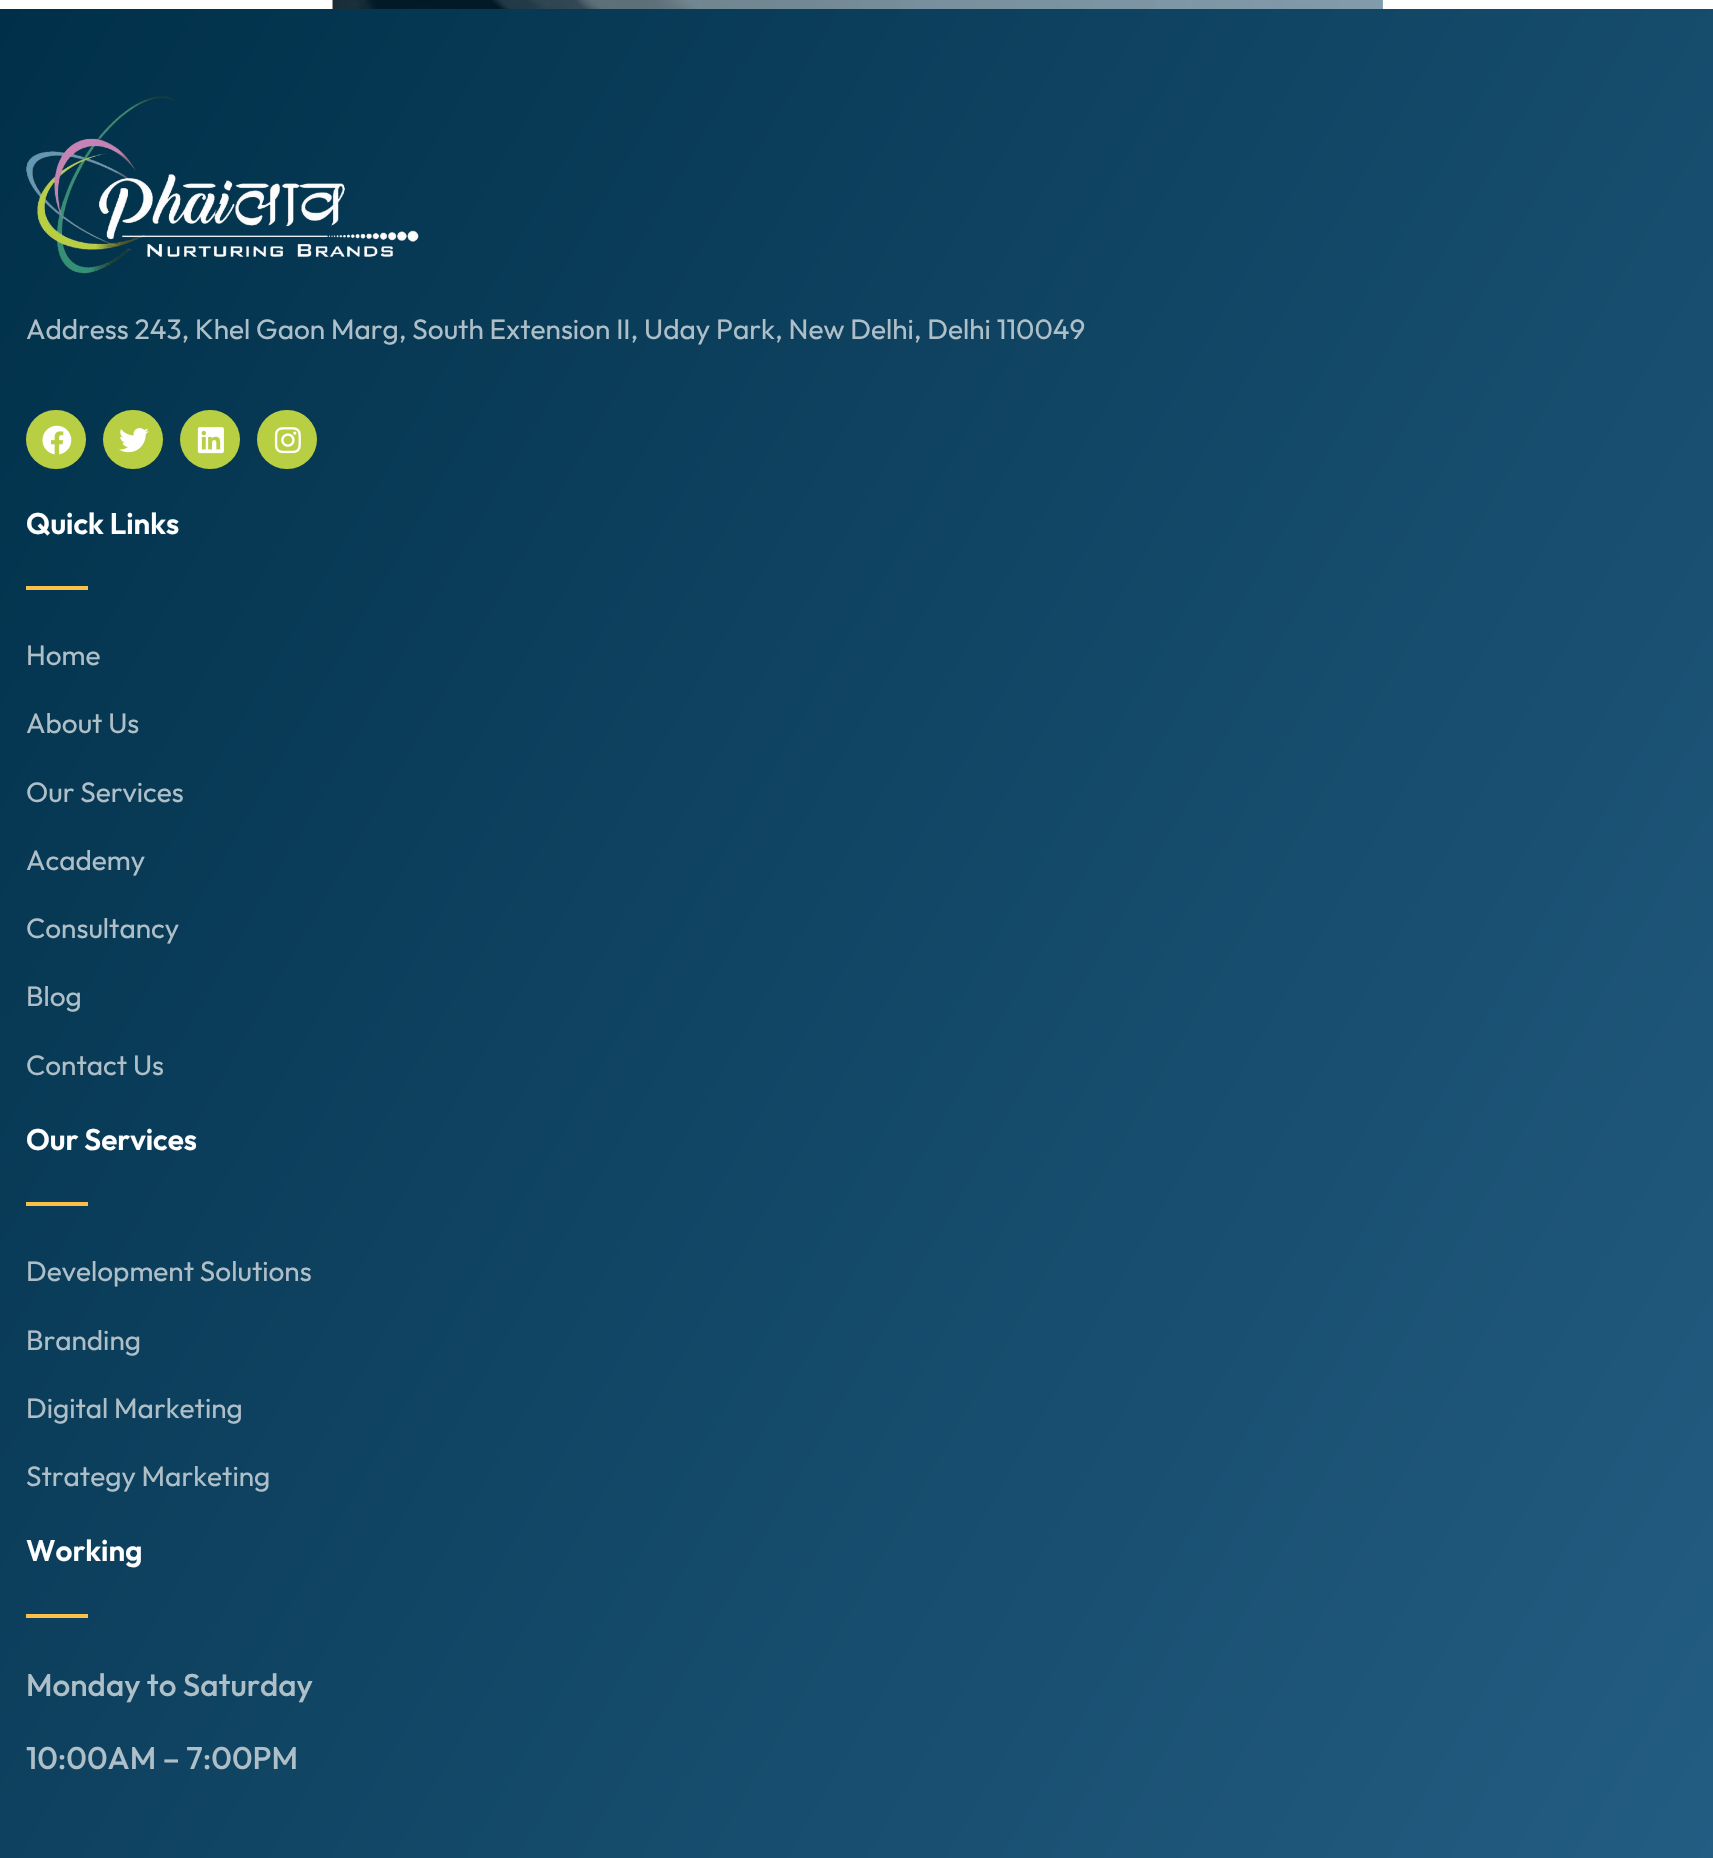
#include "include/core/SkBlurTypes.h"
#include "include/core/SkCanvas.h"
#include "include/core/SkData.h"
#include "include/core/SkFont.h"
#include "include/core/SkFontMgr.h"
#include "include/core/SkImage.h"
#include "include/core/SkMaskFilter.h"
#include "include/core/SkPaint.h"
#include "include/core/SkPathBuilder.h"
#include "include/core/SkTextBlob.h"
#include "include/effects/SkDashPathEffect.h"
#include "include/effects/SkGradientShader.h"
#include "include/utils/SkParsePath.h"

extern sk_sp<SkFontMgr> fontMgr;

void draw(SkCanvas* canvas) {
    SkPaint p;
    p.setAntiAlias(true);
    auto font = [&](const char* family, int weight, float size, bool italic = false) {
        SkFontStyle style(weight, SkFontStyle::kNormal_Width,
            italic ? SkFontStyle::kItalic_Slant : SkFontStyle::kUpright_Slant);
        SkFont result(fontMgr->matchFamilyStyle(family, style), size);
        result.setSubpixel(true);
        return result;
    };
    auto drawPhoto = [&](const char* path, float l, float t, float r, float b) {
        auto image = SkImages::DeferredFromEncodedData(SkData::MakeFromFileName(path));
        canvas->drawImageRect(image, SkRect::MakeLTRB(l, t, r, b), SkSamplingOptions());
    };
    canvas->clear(0xFFFFFFFF);
    drawPhoto("media/1.png", 332, 0, 1383, 9);
    {
        const SkColor colors[] = {0x80003049, 0x80255F85};
        const float stops[] = {0.3f, 1};
        const SkPoint ends[] = {{332, -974}, {1383, -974}};
        p.setShader(SkGradientShader::MakeLinear(ends, colors, stops, 2, SkTileMode::kClamp));
        p.setAlpha(255);
    }
    canvas->drawRect(SkRect::MakeLTRB(333, 0, 1383, 9), p);
    {
        const SkColor colors[] = {0xFF003049, 0xFF255F85};
        const float stops[] = {0, 1};
        const SkPoint ends[] = {{-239, 422}, {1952, 1687}};
        p.setShader(SkGradientShader::MakeLinear(ends, colors, stops, 2, SkTileMode::kClamp));
        p.setAlpha(255);
    }
    canvas->drawRect(SkRect::MakeLTRB(0, 9, 1713, 1858), p);
    drawPhoto("media/2.png", 26, 96, 419, 274);
    auto font1 = font("Outfit", 400, 28);
    p.setShader(nullptr);
    p.setColor(0xFFAEBFC8);
    canvas->drawString("Address 243, Khel Gaon Marg, South Extension II, Uday Park, New Delhi, Delhi 110049", 26, 339, font1, p);
    p.setColor(0xFFB8CF43);
    canvas->drawRoundRect(SkRect::MakeLTRB(26, 410, 86, 469), 29.5f, 29.5f, p);
    drawPhoto("media/3.png", 42, 425, 72, 455);
    canvas->drawRoundRect(SkRect::MakeLTRB(103, 410, 163, 469), 29.5f, 29.5f, p);
    drawPhoto("media/4.png", 119, 428, 149, 453);
    canvas->drawRoundRect(SkRect::MakeLTRB(180, 410, 240, 469), 29.5f, 29.5f, p);
    drawPhoto("media/5.png", 197, 427, 224, 454);
    canvas->drawRoundRect(SkRect::MakeLTRB(257, 410, 317, 469), 29.5f, 29.5f, p);
    drawPhoto("media/6.png", 274, 427, 301, 454);
    auto font2 = font("Outfit", 600, 29.75f);
    p.setColor(0xFFFFFFFF);
    canvas->drawString("Quick Links", 26, 534, font2, p);
    p.setColor(0xFFFCBF49);
    canvas->drawRect(SkRect::MakeLTRB(26, 586, 88, 590), p);
    p.setColor(0xFFAEBFC8);
    {
        const struct { const char* s; float x, y; } items[] = {
            {"Home", 26, 665},
            {"About Us", 26, 733},
            {"Our Services", 26, 802},
            {"Academy", 26, 870},
            {"Consultancy", 26, 938},
            {"Blog", 26, 1006},
            {"Contact Us", 26, 1075},
        };
        for (auto [s, x, y] : items) {
            canvas->drawString(s, x, y, font1, p);
        }
    }
    p.setColor(0xFFFFFFFF);
    canvas->drawString("Our Services", 26, 1150, font2, p);
    p.setColor(0xFFFCBF49);
    canvas->drawRect(SkRect::MakeLTRB(26, 1202, 88, 1206), p);
    p.setColor(0xFFAEBFC8);
    {
        const struct { const char* s; float x, y; } items[] = {
            {"Development Solutions", 26, 1281},
            {"Branding", 26, 1350},
            {"Digital Marketing", 26, 1418},
            {"Strategy Marketing", 26, 1486},
        };
        for (auto [s, x, y] : items) {
            canvas->drawString(s, x, y, font1, p);
        }
    }
    p.setColor(0xFFFFFFFF);
    canvas->drawString("Working", 26, 1561, font2, p);
    p.setColor(0xFFFCBF49);
    canvas->drawRect(SkRect::MakeLTRB(26, 1614, 88, 1618), p);
    auto font3 = font("Outfit", 500, 31.5f);
    p.setColor(0xFFAEBFC8);
    canvas->drawString("Monday to Saturday", 26, 1696, font3, p);
    canvas->drawString("10:00AM – 7:00PM", 26, 1769, font3, p);
}
